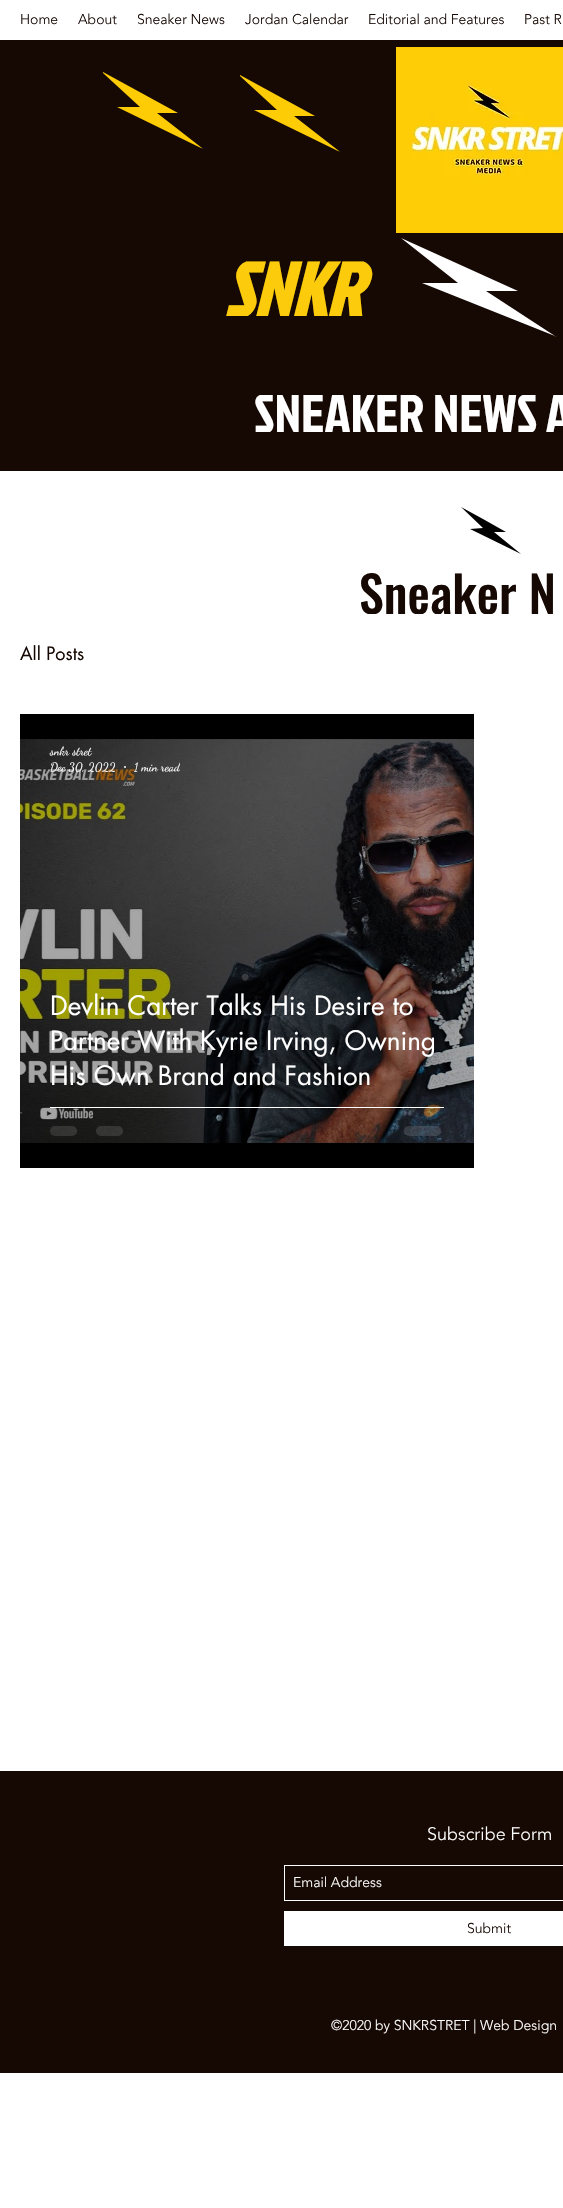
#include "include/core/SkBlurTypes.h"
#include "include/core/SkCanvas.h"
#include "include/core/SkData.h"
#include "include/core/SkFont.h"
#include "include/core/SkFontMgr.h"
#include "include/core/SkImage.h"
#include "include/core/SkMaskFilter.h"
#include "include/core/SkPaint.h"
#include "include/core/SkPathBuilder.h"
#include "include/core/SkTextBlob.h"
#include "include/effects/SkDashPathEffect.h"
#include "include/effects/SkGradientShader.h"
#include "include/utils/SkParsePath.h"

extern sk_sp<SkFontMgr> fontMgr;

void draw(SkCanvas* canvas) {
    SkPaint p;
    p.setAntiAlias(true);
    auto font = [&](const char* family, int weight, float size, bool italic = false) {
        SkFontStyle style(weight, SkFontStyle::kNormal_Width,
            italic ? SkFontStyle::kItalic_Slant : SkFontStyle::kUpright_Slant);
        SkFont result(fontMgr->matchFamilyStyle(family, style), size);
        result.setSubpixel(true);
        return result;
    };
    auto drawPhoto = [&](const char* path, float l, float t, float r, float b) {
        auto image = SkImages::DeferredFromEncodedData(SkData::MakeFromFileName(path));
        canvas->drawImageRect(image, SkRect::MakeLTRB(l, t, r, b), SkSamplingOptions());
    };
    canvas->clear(0xFFFFFFFF);
    auto font1 = font("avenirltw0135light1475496", 300, 14);
    p.setColor(0xFF160904);
    {
        const struct { const char* s; float x, y; } items[] = {
            {"Home", 20, 24},
            {"About", 78, 24},
            {"Sneaker News", 137, 24},
            {"Jordan Calendar", 245, 24},
            {"Editorial and Features", 368, 24},
            {"Past R", 524, 24},
        };
        for (auto [s, x, y] : items) {
            canvas->drawString(s, x, y, font1, p);
        }
    }
    canvas->drawRect(SkRect::MakeLTRB(0, 40, 563, 471), p);
    p.setColor(0xFFFECC05);
    canvas->drawPath(SkPathBuilder().moveTo(201, 148).lineTo(117, 107).lineTo(140, 107).lineTo(103, 73).lineTo(103, 72).lineTo(178, 113).lineTo(157, 113).lineTo(202, 148).close().detach(), p);
    p.setColor(0xFFFED639);
    canvas->drawPath(SkPathBuilder().moveTo(201.5f, 148).lineTo(202, 148).lineTo(203, 149).close().detach(), p);
    p.setColor(0xFFFECC05);
    canvas->drawPath(SkPathBuilder().moveTo(338, 151).lineTo(254, 110).lineTo(277, 110).lineTo(240, 76).lineTo(240, 75).lineTo(315, 116).lineTo(294, 116).lineTo(339, 151).close().detach(), p);
    p.setColor(0xFFFED639);
    canvas->drawPath(SkPathBuilder().moveTo(338.5f, 151).lineTo(339, 151).lineTo(340, 152).close().detach(), p);
    drawPhoto("media/1.png", 396, 47, 563, 233);
    auto font2 = font("Jockey One", 700, 75, true);
    p.setColor(0xFFFCCC0C);
    canvas->drawString("SNKR", 224, 316, font2, p);
    p.setColor(0xFFFFFFFF);
    canvas->drawPath(SkPathBuilder().moveTo(555, 336).lineTo(422, 283).lineTo(458, 283).lineTo(401, 238).lineTo(518, 291).lineTo(486, 291).close().detach(), p);
    p.setColor(0xFFFED639);
    canvas->drawPath(SkPathBuilder().moveTo(554.5f, 336).lineTo(555, 336).lineTo(557, 337).close().detach(), p);
    auto font3 = font("Jockey One", 400, 53);
    p.setColor(0xFFFFFFFF);
    canvas->drawString("SNEAKER NEWS A", 254, 432, font3, p);
    p.setColor(0xFF010101);
    canvas->drawPath(SkPathBuilder().moveTo(461, 507).lineTo(483, 519).lineTo(506, 532).lineTo(494, 532).lineTo(521, 554).lineTo(470, 529).lineTo(483, 528).close().detach(), p);
    auto font4 = font("Oswald", 500, 50);
    p.setColor(0xFF160904);
    canvas->drawString("Sneaker N", 359, 614, font4, p);
    p.setColor(0xFFFFFFFF);
    canvas->drawRect(SkRect::MakeLTRB(368, 614, 492, 615), p);
    auto font5 = font("futura", 400, 18);
    p.setColor(0xFF160904);
    canvas->drawString("All Posts", 20, 660, font5, p);
    drawPhoto("media/2.png", 20, 714, 474, 1168);
    auto font6 = font("Dancing Script", 400, 12);
    p.setColor(0xFFFFFFFF);
    canvas->drawString("snkr stret", 50, 755, font6, p);
    canvas->drawString("Dec 30, 2022", 50, 771, font6, p);
    canvas->drawCircle(125, 767, 1, p);
    canvas->save();
    canvas->clipRect(SkRect::MakeLTRB(134, 760, 180, 774));
    canvas->drawString("1 min read", 134, 771, font6, p);
    canvas->restore();
    auto font7 = font("futura", 400, 26);
    {
        const struct { const char* s; float x, y; } items[] = {
            {"Devlin Carter Talks His Desire to", 50, 1015},
            {"Partner With Kyrie Irving, Owning", 50, 1050},
            {"His Own Brand and Fashion", 50, 1085},
        };
        for (auto [s, x, y] : items) {
            canvas->drawString(s, x, y, font7, p);
        }
    }
    canvas->drawRect(SkRect::MakeLTRB(50, 1107, 444, 1108), p);
    p.setColor(0x1FFFFFFF);
    canvas->drawRoundRect(SkRect::MakeLTRB(50, 1126, 77, 1136), 5, 5, p);
    canvas->drawRoundRect(SkRect::MakeLTRB(96, 1126, 123, 1136), 5, 5, p);
    canvas->drawRoundRect(SkRect::MakeLTRB(404, 1126, 441, 1136), 5, 5, p);
    p.setColor(0xFF160904);
    canvas->drawRect(SkRect::MakeLTRB(0, 1771, 563, 2073), p);
    auto font8 = font("avenirltw0135light1475496", 300, 18);
    p.setColor(0xFFFFFFFF);
    canvas->drawString("Subscribe Form", 427, 1840, font8, p);
    p.setStyle(SkPaint::kStroke_Style);
    p.setStrokeWidth(1);
    canvas->drawRect(SkRect::MakeLTRB(284.5f, 1865.5f, 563.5f, 1900.5f), p);
    p.setStyle(SkPaint::kFill_Style);
    canvas->drawString("Email Address", 293, 1887, font1, p);
    canvas->drawRect(SkRect::MakeLTRB(284, 1911, 563, 1946), p);
    p.setColor(0xFF160904);
    canvas->drawString("Submit", 467, 1933, font1, p);
    p.setColor(0xFFFFFFFF);
    canvas->drawString("©2020 by SNKRSTRET | Web Design", 331, 2030, font1, p);
}
